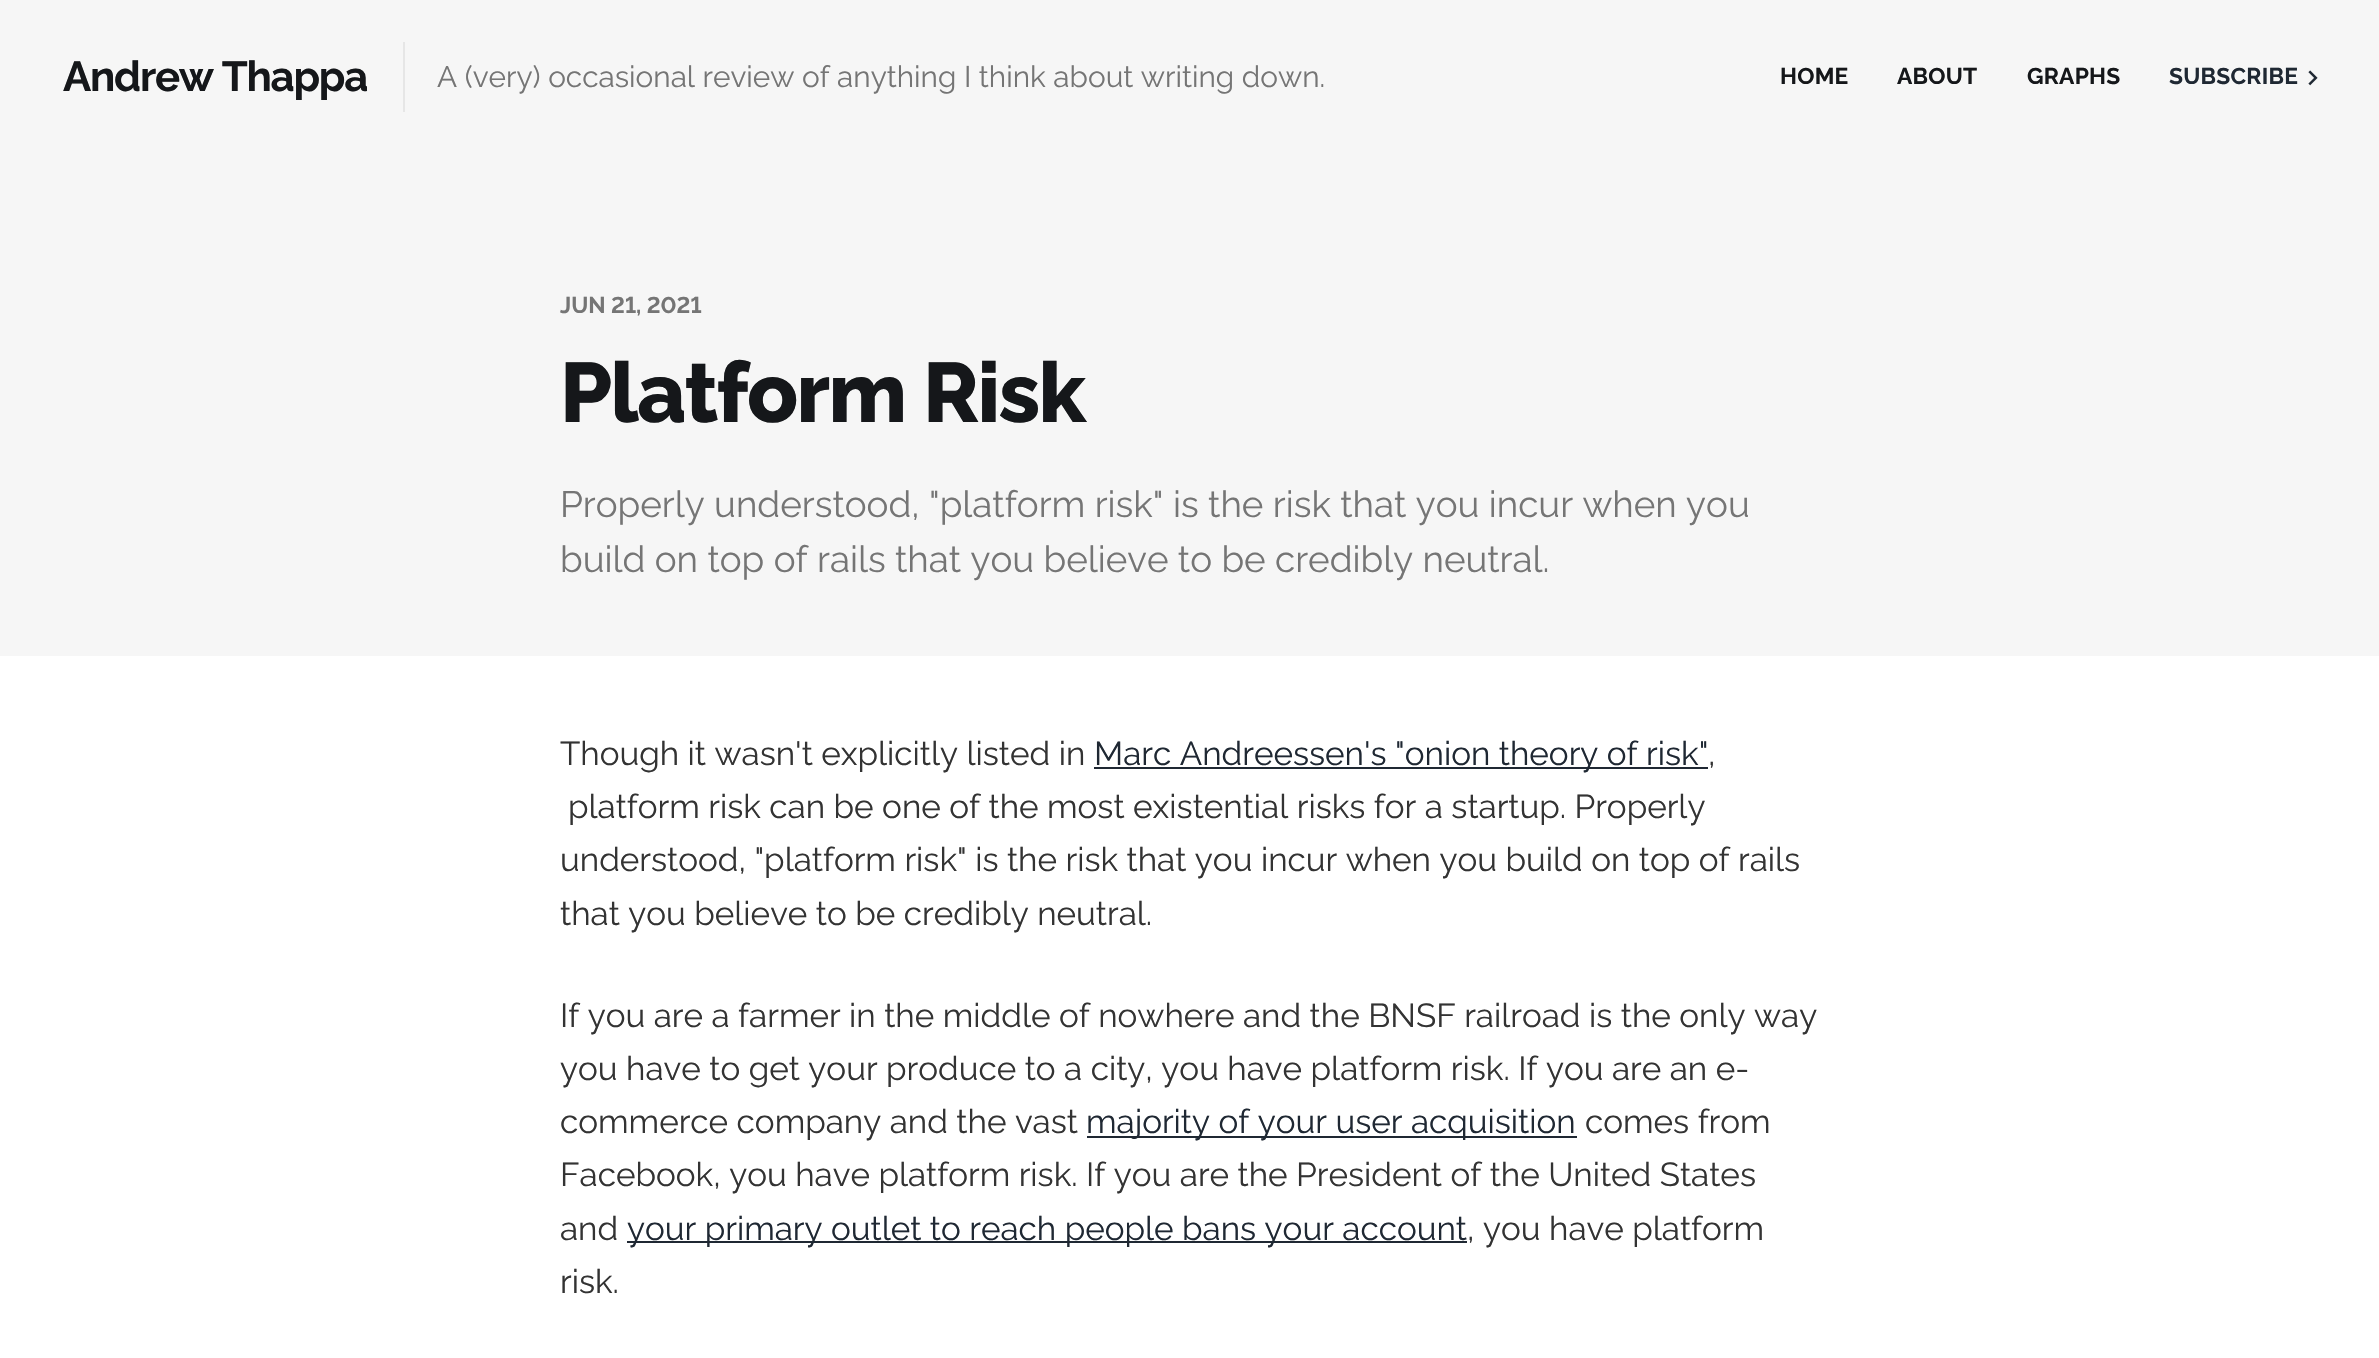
#include "include/core/SkBlurTypes.h"
#include "include/core/SkCanvas.h"
#include "include/core/SkData.h"
#include "include/core/SkFont.h"
#include "include/core/SkFontMgr.h"
#include "include/core/SkImage.h"
#include "include/core/SkMaskFilter.h"
#include "include/core/SkPaint.h"
#include "include/core/SkPathBuilder.h"
#include "include/core/SkTextBlob.h"
#include "include/effects/SkDashPathEffect.h"
#include "include/effects/SkGradientShader.h"
#include "include/utils/SkParsePath.h"

extern sk_sp<SkFontMgr> fontMgr;

void draw(SkCanvas* canvas) {
    SkPaint p;
    p.setAntiAlias(true);
    auto font = [&](const char* family, int weight, float size, bool italic = false) {
        SkFontStyle style(weight, SkFontStyle::kNormal_Width,
            italic ? SkFontStyle::kItalic_Slant : SkFontStyle::kUpright_Slant);
        SkFont result(fontMgr->matchFamilyStyle(family, style), size);
        result.setSubpixel(true);
        return result;
    };
    auto drawTracked = [&](const char* s, float x, float y, const SkFont& font, const SkPaint& ink, float letter, float word) {
        std::vector<SkGlyphID> glyphs(font.countText(s, strlen(s), SkTextEncoding::kUTF8));
        std::vector<float> xs(glyphs.size());
        font.textToGlyphs(s, strlen(s), SkTextEncoding::kUTF8, glyphs);
        font.getXPos(glyphs, xs, x);
        float extra = 0;
        for (size_t i = 0; i < glyphs.size(); i++) {
            xs[i] += extra;
            extra += letter + word * (glyphs[i] == font.unicharToGlyph(' '));
        }
        canvas->drawTextBlob(SkTextBlob::MakeFromPosHGlyphs(glyphs, xs, y, font), 0, 0, ink);
    };
    auto drawPhoto = [&](const char* path, float l, float t, float r, float b) {
        auto image = SkImages::DeferredFromEncodedData(SkData::MakeFromFileName(path));
        canvas->drawImageRect(image, SkRect::MakeLTRB(l, t, r, b), SkSamplingOptions());
    };
    canvas->clear(0xFFFFFFFF);
    p.setColor(0xFFF6F6F6);
    canvas->drawRect(SkRect::MakeLTRB(0, 0, 2379, 656), p);
    auto font1 = font("Raleway", 700, 42);
    p.setColor(0xFF15171A);
    drawTracked("Andrew Thappa", 63, 91, font1, p, -1.25f, 0);
    p.setColor(0xFFE6E6E6);
    canvas->drawRect(SkRect::MakeLTRB(403, 42, 405, 112), p);
    auto font2 = font("Raleway", 400, 29.75f);
    p.setColor(0xFF757575);
    canvas->drawString("A (very) occasional review of anything I think about writing down.", 437, 87, font2, p);
    auto font3 = font("Raleway", 700, 22.75f);
    p.setColor(0xFF15171A);
    {
        const struct { const char* s; float x, y; } items[] = {
            {"HOME", 1780, 84},
            {"ABOUT", 1897, 84},
            {"GRAPHS", 2027, 84},
        };
        for (auto [s, x, y] : items) {
            drawTracked(s, x, y, font3, p, 0.25f, 0);
        }
    }
    p.setColor(0xFF1F2833);
    drawTracked("SUBSCRIBE", 2169, 84, font3, p, 0.25f, 0);
    drawPhoto("media/1.png", 2308, 70, 2318, 86);
    auto font4 = font("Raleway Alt", 700, 22.75f);
    p.setColor(0xFF757575);
    canvas->drawString("JUN 21, 2021", 560, 313, font4, p);
    auto font5 = font("Raleway", 800, 84);
    p.setColor(0xFF15171A);
    drawTracked("Platform Risk", 560, 422, font5, p, -1.75f, 0);
    auto font6 = font("Raleway", 400, 36.75f);
    p.setColor(0xFF757575);
    canvas->drawString("Properly understood, \"platform risk\" is the risk that you incur when you", 560, 517, font6, p);
    canvas->drawString("build on top of rails that you believe to be credibly neutral.", 560, 572, font6, p);
    auto font7 = font("Raleway", 400, 33.25f);
    p.setColor(0xFF333333);
    canvas->drawString("Though it wasn't explicitly listed in", 560, 765, font7, p);
    p.setColor(0xFF1F2833);
    canvas->drawRect(SkRect::MakeLTRB(1094, 767, 1708, 769), p);
    canvas->drawString("Marc Andreessen's \"onion theory of risk\"", 1094, 765, font7, p);
    p.setColor(0xFF333333);
    {
        const struct { const char* s; float x, y; } items[] = {
            {",", 1708, 765},
            {"platform risk can be one of the most existential risks for a startup. Properly", 568, 818},
            {"understood, \"platform risk\" is the risk that you incur when you build on top of rails", 560, 871},
            {"that you believe to be credibly neutral.", 560, 925},
            {"If you are a farmer in the middle of nowhere and the BNSF railroad is the only way", 560, 1027},
            {"you have to get your produce to a city, you have platform risk. If you are an e-", 560, 1080},
            {"commerce company and the vast", 560, 1133},
        };
        for (auto [s, x, y] : items) {
            canvas->drawString(s, x, y, font7, p);
        }
    }
    p.setColor(0xFF1F2833);
    canvas->drawRect(SkRect::MakeLTRB(1087, 1136, 1577, 1138), p);
    canvas->drawString("majority of your user acquisition", 1086, 1133, font7, p);
    p.setColor(0xFF333333);
    {
        const struct { const char* s; float x, y; } items[] = {
            {"comes from", 1585, 1133},
            {"Facebook, you have platform risk. If you are the President of the United States", 560, 1186},
            {"and", 560, 1240},
        };
        for (auto [s, x, y] : items) {
            canvas->drawString(s, x, y, font7, p);
        }
    }
    p.setColor(0xFF1F2833);
    canvas->drawRect(SkRect::MakeLTRB(627, 1241, 1467, 1243), p);
    canvas->drawString("your primary outlet to reach people bans your account", 627, 1240, font7, p);
    p.setColor(0xFF333333);
    canvas->drawString(", you have platform", 1467, 1240, font7, p);
    canvas->drawString("risk.", 560, 1293, font7, p);
}
